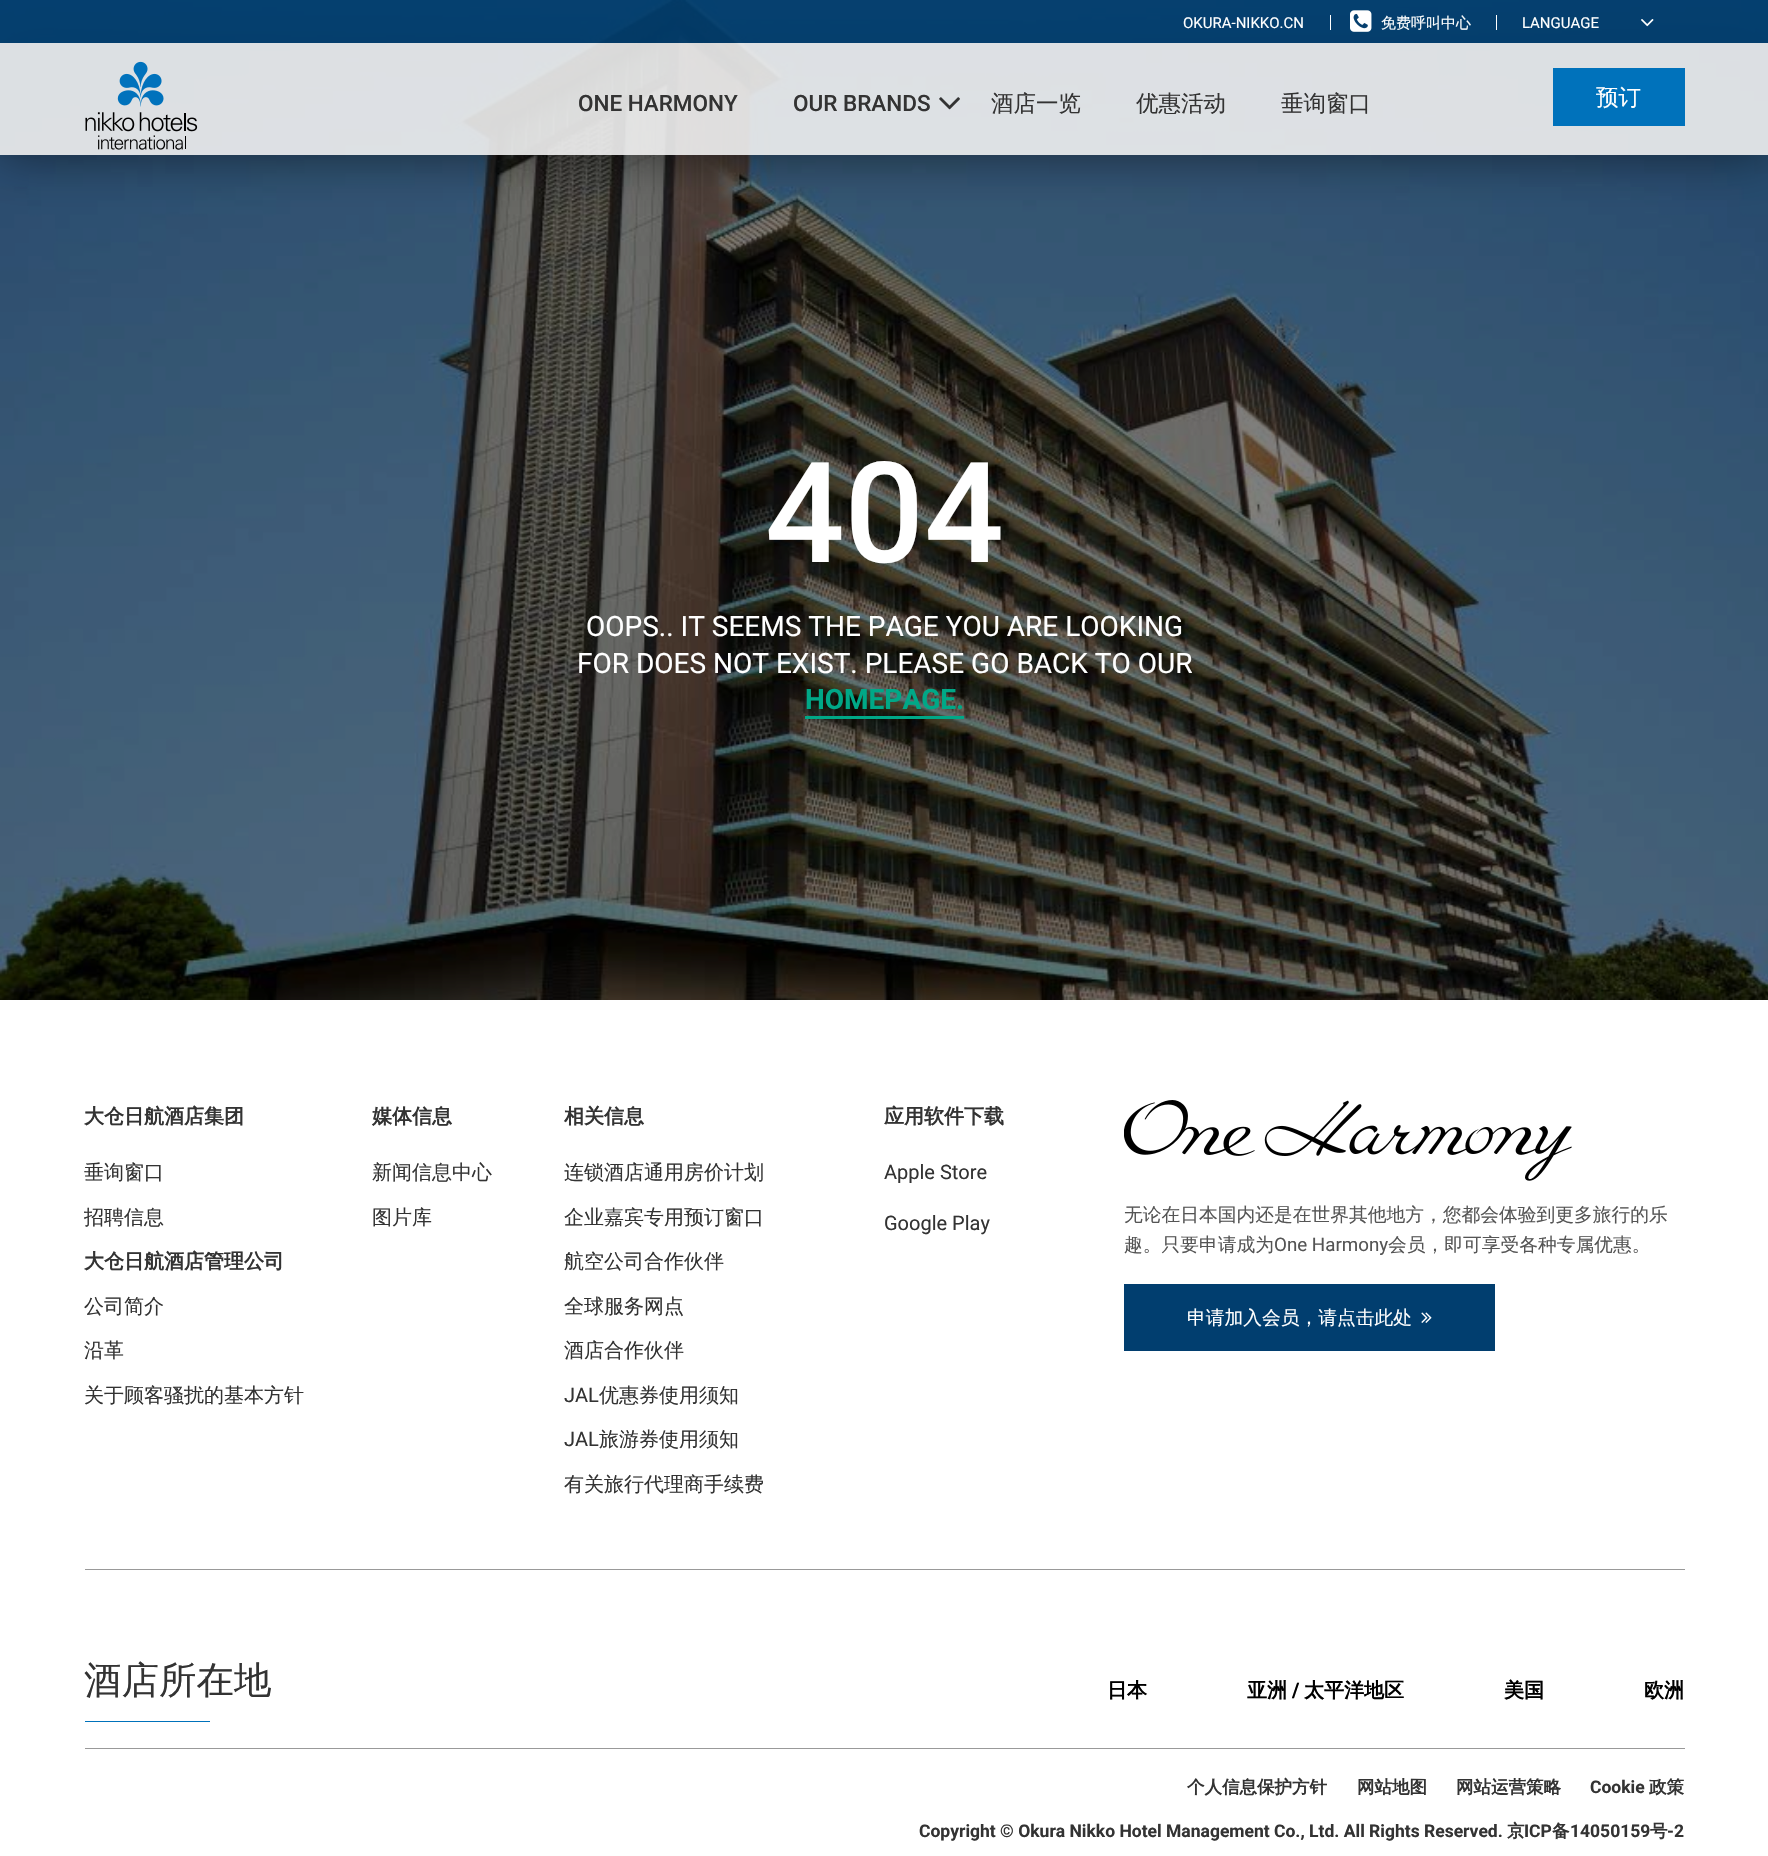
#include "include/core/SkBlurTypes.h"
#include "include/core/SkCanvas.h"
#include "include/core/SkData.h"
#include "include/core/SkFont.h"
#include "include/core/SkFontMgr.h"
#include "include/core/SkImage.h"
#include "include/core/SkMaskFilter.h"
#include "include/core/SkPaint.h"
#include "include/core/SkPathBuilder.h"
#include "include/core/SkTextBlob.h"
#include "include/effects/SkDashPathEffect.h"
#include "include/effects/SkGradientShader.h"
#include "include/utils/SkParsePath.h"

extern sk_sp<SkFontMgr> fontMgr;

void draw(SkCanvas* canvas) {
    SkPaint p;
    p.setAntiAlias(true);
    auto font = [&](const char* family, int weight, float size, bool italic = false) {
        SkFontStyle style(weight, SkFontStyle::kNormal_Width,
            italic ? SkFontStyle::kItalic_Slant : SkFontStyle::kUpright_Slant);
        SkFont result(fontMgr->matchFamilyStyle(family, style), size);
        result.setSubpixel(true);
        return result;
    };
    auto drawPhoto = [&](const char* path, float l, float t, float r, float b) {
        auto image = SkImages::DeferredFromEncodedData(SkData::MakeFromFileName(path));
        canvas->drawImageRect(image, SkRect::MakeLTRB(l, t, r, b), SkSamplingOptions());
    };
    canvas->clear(0xFFFFFFFF);
    drawPhoto("media/5.png", 0, 0, 1768, 1000);
    canvas->save();
    canvas->clipPath(SkPathBuilder(SkPathFillType::kEvenOdd).moveTo(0, 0).lineTo(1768, 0).lineTo(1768, 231).lineTo(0, 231).close().moveTo(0, 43).lineTo(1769, 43).lineTo(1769, 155).lineTo(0, 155).close().detach(), true);
    p.setColor(0x80000000);
    p.setMaskFilter(SkMaskFilter::MakeBlur(kNormal_SkBlurStyle, 25));
    canvas->drawRect(SkRect::MakeLTRB(0, 43, 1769, 155), p);
    p.setMaskFilter(nullptr);
    canvas->restore();
    p.setColor(0xE6013E6F);
    canvas->drawRect(SkRect::MakeLTRB(0, 0, 1768, 43), p);
    auto font1 = font("Roboto", 400, 15);
    p.setColor(0xFFFFFFFF);
    canvas->drawString("OKURA-NIKKO.CN", 1183, 28, font1, p);
    canvas->drawRect(SkRect::MakeLTRB(1496, 15, 1497, 30), p);
    canvas->drawRect(SkRect::MakeLTRB(1330, 15, 1331, 30), p);
    drawPhoto("media/1.png", 1350, 10, 1372, 32);
    auto font2 = font("WenQuanYi Zen Hei", 500, 15);
    canvas->drawString("免费呼叫中心", 1381, 28, font2, p);
    canvas->drawString("LANGUAGE", 1522, 28, font1, p);
    drawPhoto("media/2.png", 1641, 19, 1654, 27);
    p.setColor(0xE6EFEFEF);
    canvas->drawRect(SkRect::MakeLTRB(0, 43, 1768, 155), p);
    drawPhoto("media/3.png", 85, 61, 198, 150);
    auto font3 = font("Roboto", 500, 22.5f);
    p.setColor(0xFF333333);
    canvas->drawString("ONE HARMONY", 578, 111, font3, p);
    canvas->drawString("OUR BRANDS", 793, 111, font3, p);
    drawPhoto("media/4.png", 939, 97, 960, 110);
    auto font4 = font("WenQuanYi Zen Hei", 500, 22.5f);
    {
        const struct { const char* s; float x, y; } items[] = {
            {"酒店一览", 991, 111},
            {"优惠活动", 1136, 111},
            {"垂询窗口", 1281, 111},
        };
        for (auto [s, x, y] : items) {
            canvas->drawString(s, x, y, font4, p);
        }
    }
    p.setColor(0xFF0072BB);
    canvas->drawRect(SkRect::MakeLTRB(1553, 68, 1685, 126), p);
    p.setColor(0xFFFFFFFF);
    canvas->drawString("预订", 1596, 105, font4, p);
    auto font5 = font("Roboto", 500, 140);
    canvas->drawString("404", 765, 562, font5, p);
    auto font6 = font("Roboto", 400, 28);
    canvas->drawString("OOPS.. IT SEEMS THE PAGE YOU ARE LOOKING", 586, 636, font6, p);
    canvas->drawString("FOR DOES NOT EXIST. PLEASE GO BACK TO OUR", 577, 673, font6, p);
    auto font7 = font("Roboto", 700, 28);
    p.setColor(0xFF00A887);
    canvas->drawString("HOMEPAGE.", 805, 709, font7, p);
    canvas->drawRect(SkRect::MakeLTRB(805, 716, 964, 719), p);
    p.setColor(0xFF999999);
    canvas->drawRect(SkRect::MakeLTRB(85, 1569, 1685, 1570), p);
    auto font8 = font("WenQuanYi Zen Hei", 700, 20);
    p.setColor(0xFF333333);
    canvas->drawString("大仓日航酒店集团", 84, 1123, font8, p);
    auto font9 = font("WenQuanYi Zen Hei", 500, 20);
    canvas->drawString("垂询窗口", 84, 1179, font9, p);
    canvas->drawString("招聘信息", 84, 1224, font9, p);
    canvas->drawString("大仓日航酒店管理公司", 84, 1268, font8, p);
    {
        const struct { const char* s; float x, y; } items[] = {
            {"公司简介", 84, 1313},
            {"沿革", 84, 1357},
            {"关于顾客骚扰的基本方针", 84, 1402},
        };
        for (auto [s, x, y] : items) {
            canvas->drawString(s, x, y, font9, p);
        }
    }
    canvas->drawString("媒体信息", 372, 1123, font8, p);
    canvas->drawString("新闻信息中心", 372, 1179, font9, p);
    canvas->drawString("图片库", 372, 1224, font9, p);
    canvas->drawString("相关信息", 564, 1123, font8, p);
    {
        const struct { const char* s; float x, y; } items[] = {
            {"连锁酒店通用房价计划", 564, 1179},
            {"企业嘉宾专用预订窗口", 564, 1224},
            {"航空公司合作伙伴", 564, 1268},
            {"全球服务网点", 564, 1313},
            {"酒店合作伙伴", 564, 1357},
        };
        for (auto [s, x, y] : items) {
            canvas->drawString(s, x, y, font9, p);
        }
    }
    auto font10 = font("Roboto", 400, 20);
    canvas->drawString("JAL", 564, 1402, font10, p);
    canvas->drawString("优惠券使用须知", 599, 1402, font9, p);
    canvas->drawString("JAL", 564, 1446, font10, p);
    canvas->drawString("旅游券使用须知", 599, 1446, font9, p);
    canvas->drawString("有关旅行代理商手续费", 564, 1491, font9, p);
    canvas->drawString("应用软件下载", 884, 1123, font8, p);
    canvas->drawString("Apple Store", 884, 1179, font10, p);
    canvas->drawString("Google Play", 884, 1230, font10, p);
    drawPhoto("media/6.png", 1124, 1100, 1572, 1181);
    auto font11 = font("WenQuanYi Zen Hei", 500, 18.75f);
    p.setColor(0xFF555555);
    canvas->drawString("无论在日本国内还是在世界其他地方，您都会体验到更多旅行的乐", 1124, 1221, font11, p);
    canvas->drawString("趣。只要申请成为", 1124, 1251, font11, p);
    auto font12 = font("Roboto", 400, 18.75f);
    canvas->drawString("One Harmony", 1274, 1251, font12, p);
    canvas->drawString("会员，即可享受各种专属优惠。", 1388, 1251, font11, p);
    p.setColor(0xFF013E6F);
    canvas->drawRect(SkRect::MakeLTRB(1124, 1284, 1495, 1351), p);
    p.setColor(0xFFFFFFFF);
    canvas->drawString("申请加入会员，请点击此处", 1187, 1324, font11, p);
    drawPhoto("media/7.png", 1421, 1312, 1432, 1323);
    p.setColor(0xFF999999);
    canvas->drawRect(SkRect::MakeLTRB(85, 1748, 1685, 1749), p);
    auto font13 = font("WenQuanYi Zen Hei", 500, 37.5f);
    p.setColor(0xFF333333);
    canvas->drawString("酒店所在地", 84, 1693, font13, p);
    p.setColor(0xFF0072BB);
    canvas->drawRect(SkRect::MakeLTRB(85, 1721, 210, 1722), p);
    p.setColor(0xFF000000);
    canvas->drawString("日本", 1107, 1697, font8, p);
    canvas->drawString("亚洲", 1247, 1697, font8, p);
    auto font14 = font("Roboto", 700, 20);
    canvas->drawString("/", 1292, 1697, font14, p);
    {
        const struct { const char* s; float x, y; } items[] = {
            {"太平洋地区", 1304, 1697},
            {"美国", 1504, 1697},
            {"欧洲", 1644, 1697},
        };
        for (auto [s, x, y] : items) {
            canvas->drawString(s, x, y, font8, p);
        }
    }
    auto font15 = font("WenQuanYi Zen Hei", 700, 17.5f);
    p.setColor(0xFF333333);
    {
        const struct { const char* s; float x, y; } items[] = {
            {"个人信息保护方针", 1187, 1793},
            {"网站地图", 1357, 1793},
            {"网站运营策略", 1456, 1793},
        };
        for (auto [s, x, y] : items) {
            canvas->drawString(s, x, y, font15, p);
        }
    }
    auto font16 = font("Roboto", 700, 17.5f);
    canvas->drawString("Cookie", 1590, 1793, font16, p);
    canvas->drawString("政策", 1649, 1793, font15, p);
    canvas->drawString("Copyright © Okura Nikko Hotel Management Co., Ltd. All Rights Reserved.", 919, 1837, font16, p);
    canvas->drawString("京", 1507, 1837, font15, p);
    canvas->drawString("ICP", 1524, 1837, font16, p);
    canvas->drawString("备", 1552, 1837, font15, p);
    canvas->drawString("14050159", 1570, 1837, font16, p);
    canvas->drawString("号", 1650, 1837, font15, p);
    canvas->drawString("-2", 1667, 1837, font16, p);
}
